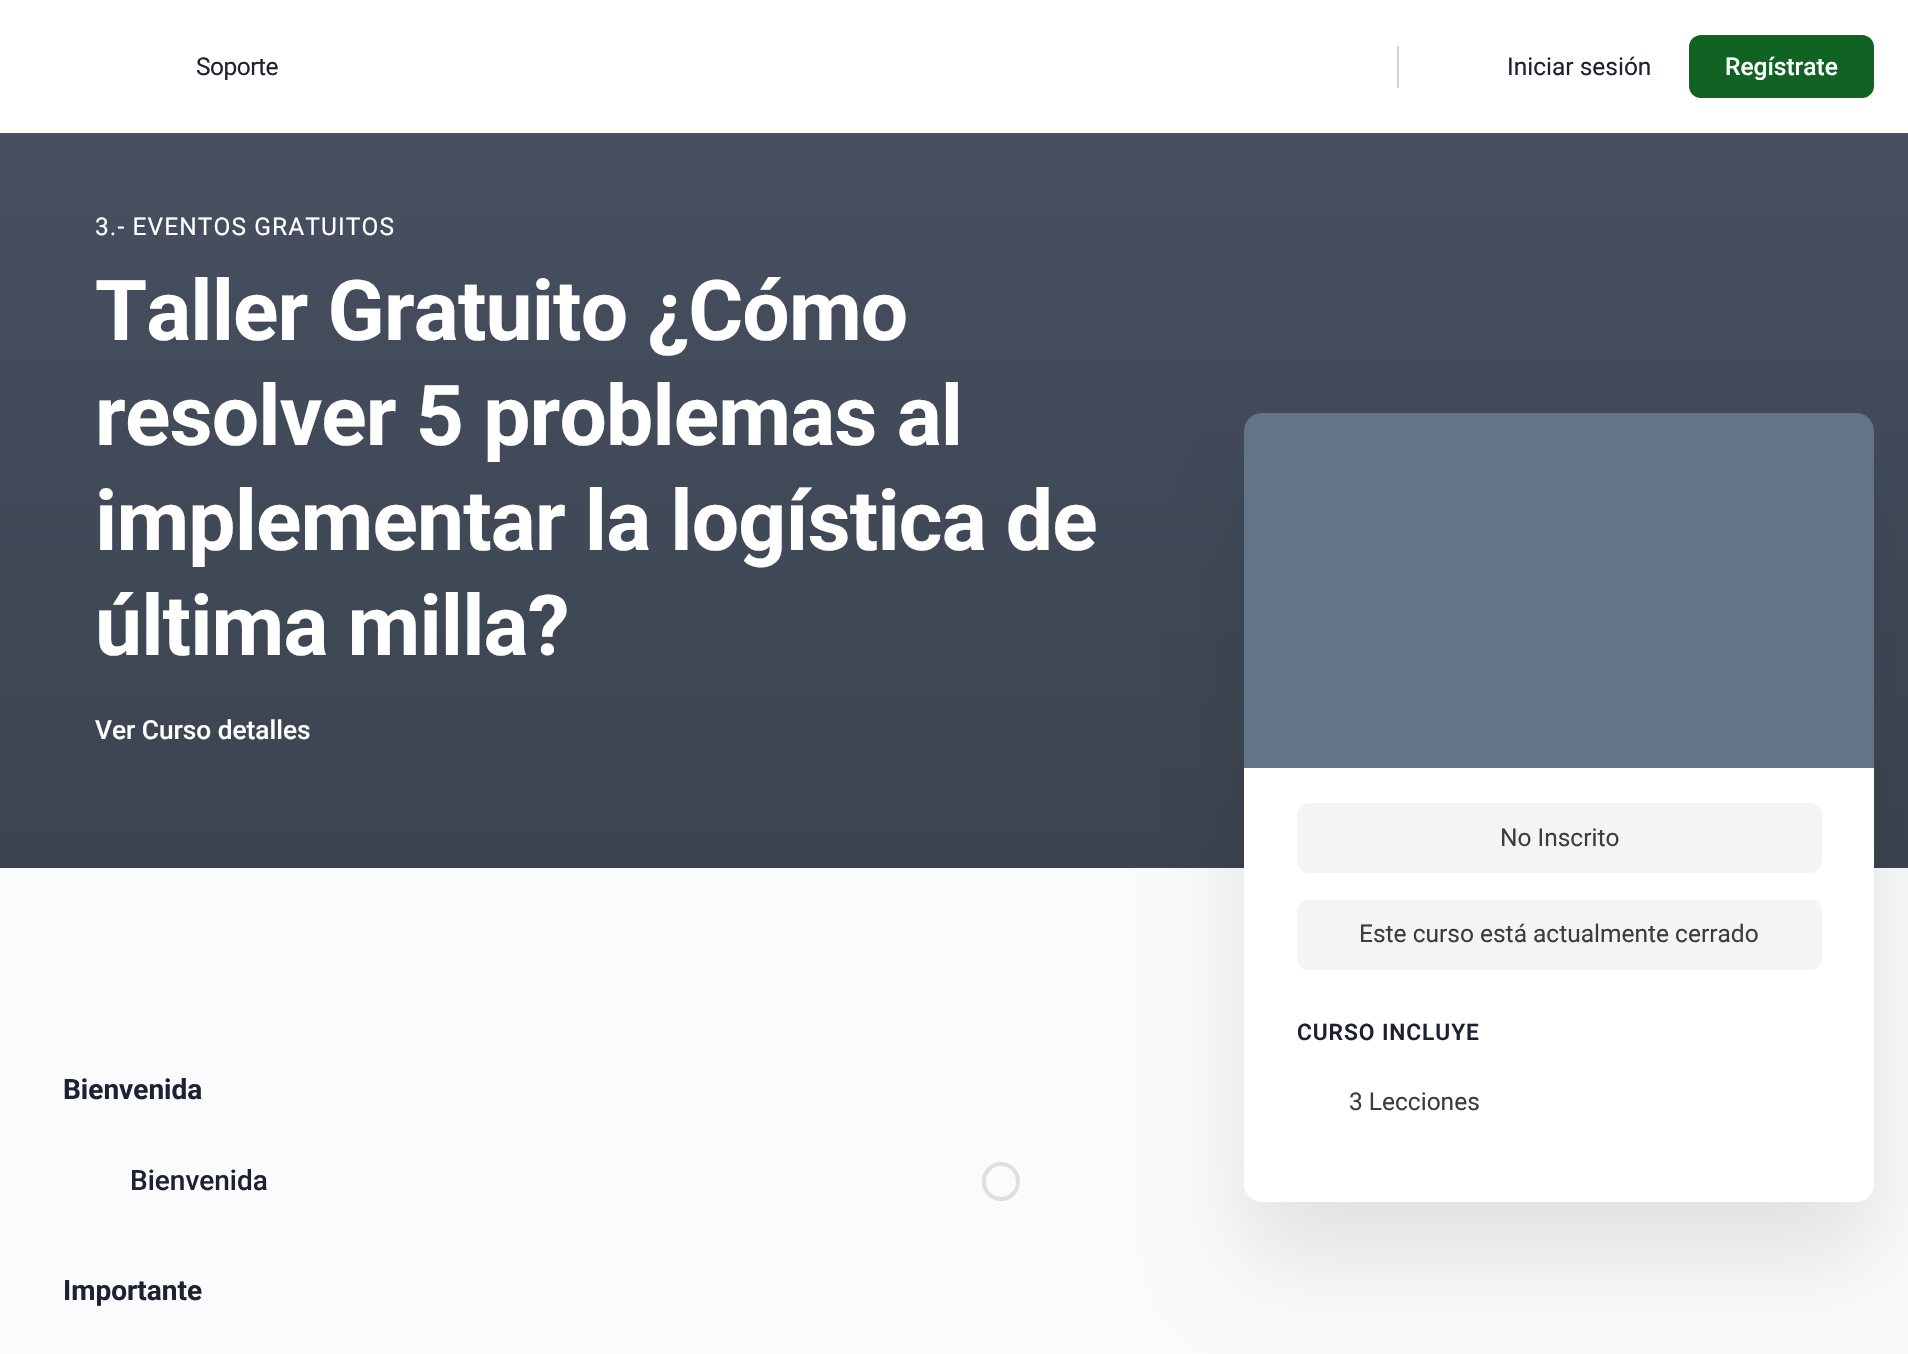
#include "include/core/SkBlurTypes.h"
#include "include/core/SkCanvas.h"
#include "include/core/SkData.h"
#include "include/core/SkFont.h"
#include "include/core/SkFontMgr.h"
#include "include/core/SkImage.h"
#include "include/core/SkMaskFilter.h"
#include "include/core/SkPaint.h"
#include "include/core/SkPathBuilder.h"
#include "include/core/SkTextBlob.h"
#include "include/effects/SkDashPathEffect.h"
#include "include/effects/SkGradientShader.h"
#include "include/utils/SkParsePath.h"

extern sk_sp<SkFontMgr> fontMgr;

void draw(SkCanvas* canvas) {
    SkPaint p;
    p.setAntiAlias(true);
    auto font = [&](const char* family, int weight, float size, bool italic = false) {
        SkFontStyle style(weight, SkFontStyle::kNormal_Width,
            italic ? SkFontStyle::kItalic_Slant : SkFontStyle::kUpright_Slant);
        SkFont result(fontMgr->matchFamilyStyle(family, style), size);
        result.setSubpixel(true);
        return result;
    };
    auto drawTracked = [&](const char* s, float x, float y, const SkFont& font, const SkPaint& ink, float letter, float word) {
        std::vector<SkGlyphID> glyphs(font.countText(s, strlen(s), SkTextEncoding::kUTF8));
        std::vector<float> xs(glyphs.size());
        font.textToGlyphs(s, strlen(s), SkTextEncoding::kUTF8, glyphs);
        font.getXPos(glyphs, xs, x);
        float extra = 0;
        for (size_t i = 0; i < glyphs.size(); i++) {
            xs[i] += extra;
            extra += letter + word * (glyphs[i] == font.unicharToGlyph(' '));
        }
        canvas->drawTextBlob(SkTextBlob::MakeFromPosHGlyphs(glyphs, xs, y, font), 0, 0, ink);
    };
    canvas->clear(0xFFFAFBFD);
    p.setColor(0xFF4A5263);
    canvas->drawRect(SkRect::MakeLTRB(0, 133, 1908, 135), p);
    p.setColor(0xFFFFFFFF);
    canvas->drawRect(SkRect::MakeLTRB(0, 0, 1908, 133), p);
    auto font1 = font("Roboto", 400, 24.5f);
    p.setColor(0xFF1E2132);
    drawTracked("Soporte", 196, 75, font1, p, -0.5f, 0);
    p.setColor(0xFFD2D3D6);
    canvas->drawRect(SkRect::MakeLTRB(1397, 46, 1399, 88), p);
    p.setColor(0xFF1E2132);
    canvas->drawString("Iniciar sesión", 1507, 75, font1, p);
    p.setColor(0xFF116323);
    canvas->drawRoundRect(SkRect::MakeLTRB(1690, 36, 1873, 97), 11, 11, p);
    p.setStyle(SkPaint::kStroke_Style);
    p.setStrokeWidth(2);
    canvas->drawRoundRect(SkRect::MakeLTRB(1690, 36, 1873, 97), 11, 11, p);
    auto font2 = font("Roboto", 500, 24.5f);
    p.setStyle(SkPaint::kFill_Style);
    p.setColor(0xFFFFFFFF);
    canvas->drawString("Regístrate", 1725, 75, font2, p);
    {
        const SkColor colors[] = {0xFF485062, 0xFF3B444F};
        const float stops[] = {0.04f, 1};
        const SkPoint ends[] = {{955, 28}, {955, 868}};
        p.setShader(SkGradientShader::MakeLinear(ends, colors, stops, 2, SkTileMode::kClamp));
        p.setAlpha(255);
    }
    canvas->drawRect(SkRect::MakeLTRB(0, 135, 1908, 868), p);
    p.setShader(nullptr);
    p.setColor(0xFFFFFFFF);
    drawTracked("3.- EVENTOS GRATUITOS", 95, 235, font1, p, 1.1f, 0);
    auto font3 = font("Roboto", 700, 84);
    {
        const struct { const char* s; float x, y; } items[] = {
            {"Taller Gratuito ¿Cómo", 95, 340},
            {"resolver 5 problemas al", 95, 445},
            {"implementar la logística de", 95, 550},
            {"última milla?", 95, 655},
        };
        for (auto [s, x, y] : items) {
            drawTracked(s, x, y, font3, p, -0.85f, 0);
        }
    }
    auto font4 = font("Roboto", 500, 26.25f);
    canvas->drawString("Ver Curso detalles", 95, 739, font4, p);
    p.setColor(0x1A000000);
    p.setMaskFilter(SkMaskFilter::MakeBlur(kNormal_SkBlurStyle, 47));
    canvas->drawRoundRect(SkRect::MakeLTRB(1244, 469, 1874, 1258), 18, 18, p);
    p.setMaskFilter(nullptr);
    p.setColor(0xFF647385);
    canvas->drawPath(SkPathBuilder().moveTo(1262, 413).lineTo(1856, 413).cubicTo(1866, 413, 1874, 421, 1874, 431).lineTo(1874, 768).lineTo(1244, 768).lineTo(1244, 431).cubicTo(1244, 421, 1252, 413, 1262, 413).close().detach(), p);
    p.setColor(0xFFFFFFFF);
    canvas->drawPath(SkPathBuilder().moveTo(1244, 768).lineTo(1874, 768).lineTo(1874, 1184).cubicTo(1874, 1194, 1866, 1202, 1856, 1202).lineTo(1262, 1202).cubicTo(1252, 1202, 1244, 1194, 1244, 1184).close().detach(), p);
    p.setColor(0xFFF2F4F5);
    canvas->drawRoundRect(SkRect::MakeLTRB(1297, 803, 1822, 873), 12, 12, p);
    p.setColor(0xFF3D3D3D);
    canvas->drawString("No Inscrito", 1500, 846, font1, p);
    p.setColor(0xFFF2F4F5);
    canvas->drawRoundRect(SkRect::MakeLTRB(1297, 900, 1822, 970), 12, 12, p);
    p.setColor(0xFF3D3D3D);
    canvas->drawString("Este curso está actualmente cerrado", 1359, 942, font1, p);
    auto font5 = font("Roboto", 600, 22.75f);
    p.setColor(0xFF1E2132);
    drawTracked("CURSO INCLUYE", 1297, 1040, font5, p, 0.9f, 0);
    p.setColor(0xFF3D3D3D);
    canvas->drawString("3 Lecciones", 1349, 1110, font1, p);
    auto font6 = font("Roboto", 700, 28);
    p.setColor(0xFF1E2132);
    canvas->drawString("Bienvenida", 63, 1099, font6, p);
    auto font7 = font("Roboto", 500, 28);
    canvas->drawString("Bienvenida", 130, 1190, font7, p);
    p.setStyle(SkPaint::kStroke_Style);
    p.setStrokeWidth(4);
    p.setColor(0xFFDEDFE2);
    canvas->drawRoundRect(SkRect::MakeLTRB(984, 1164, 1018, 1199), 17, 17, p);
    p.setStyle(SkPaint::kFill_Style);
    p.setColor(0xFF1E2132);
    canvas->drawString("Importante", 63, 1300, font6, p);
}
